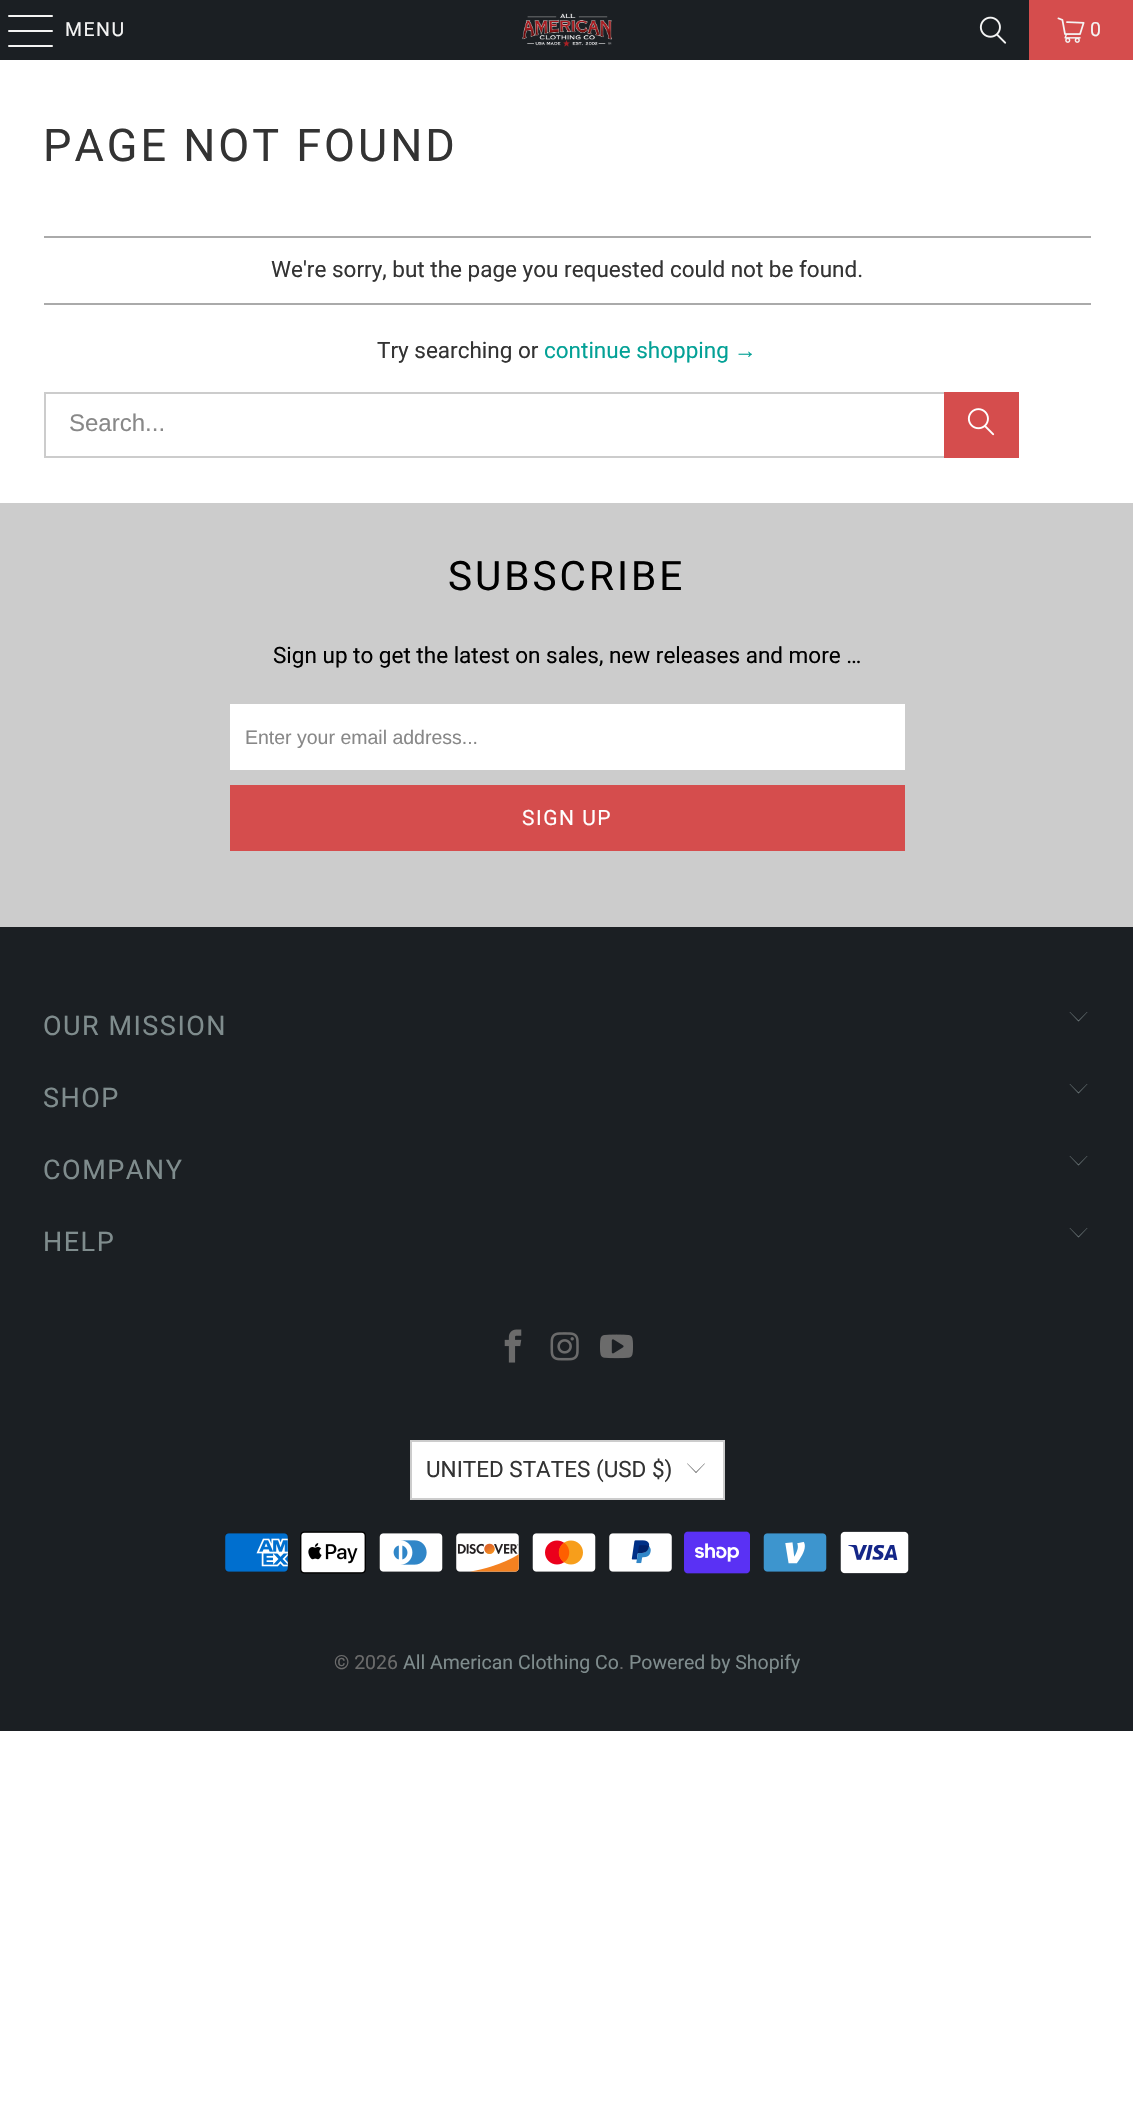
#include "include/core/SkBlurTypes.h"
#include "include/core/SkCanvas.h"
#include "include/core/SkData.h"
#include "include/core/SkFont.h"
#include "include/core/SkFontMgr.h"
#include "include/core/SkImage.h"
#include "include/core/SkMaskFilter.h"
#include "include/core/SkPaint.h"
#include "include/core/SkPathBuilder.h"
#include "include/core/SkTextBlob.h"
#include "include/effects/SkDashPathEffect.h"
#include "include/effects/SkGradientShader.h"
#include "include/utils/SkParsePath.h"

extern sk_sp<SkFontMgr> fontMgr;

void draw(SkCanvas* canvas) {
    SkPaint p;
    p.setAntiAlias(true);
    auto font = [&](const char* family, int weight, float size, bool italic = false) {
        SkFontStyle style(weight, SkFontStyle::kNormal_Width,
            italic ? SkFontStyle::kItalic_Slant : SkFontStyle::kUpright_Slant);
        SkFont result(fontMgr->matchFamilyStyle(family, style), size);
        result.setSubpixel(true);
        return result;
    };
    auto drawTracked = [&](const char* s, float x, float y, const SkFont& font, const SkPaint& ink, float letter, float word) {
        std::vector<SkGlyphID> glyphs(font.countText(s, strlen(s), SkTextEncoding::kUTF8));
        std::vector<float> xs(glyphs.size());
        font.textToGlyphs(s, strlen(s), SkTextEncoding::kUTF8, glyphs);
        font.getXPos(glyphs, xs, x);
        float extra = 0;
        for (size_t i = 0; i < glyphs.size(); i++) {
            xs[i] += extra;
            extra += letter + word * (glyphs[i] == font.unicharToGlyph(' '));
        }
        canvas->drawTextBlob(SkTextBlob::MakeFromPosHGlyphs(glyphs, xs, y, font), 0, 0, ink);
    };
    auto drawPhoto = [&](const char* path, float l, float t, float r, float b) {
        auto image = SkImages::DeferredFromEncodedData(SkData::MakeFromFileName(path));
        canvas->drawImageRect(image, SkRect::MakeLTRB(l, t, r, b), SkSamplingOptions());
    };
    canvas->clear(0xFFFFFFFF);
    p.setColor(0xFF1B1F23);
    canvas->drawRect(SkRect::MakeLTRB(0, 0, 1029, 60), p);
    p.setColor(0xFFF4F4F4);
    canvas->drawRoundRect(SkRect::MakeLTRB(8, 15, 53, 17), 1, 1, p);
    canvas->drawRoundRect(SkRect::MakeLTRB(8, 30, 53, 32), 1, 1, p);
    canvas->drawRoundRect(SkRect::MakeLTRB(8, 45, 53, 47), 1, 1, p);
    auto font1 = font("Roboto", 400, 19.5f);
    drawTracked("MENU", 65, 36, font1, p, 1.5f, 0);
    drawPhoto("media/1.png", 522, 13, 612, 47);
    drawPhoto("media/2.png", 979, 16, 1007, 44);
    p.setColor(0xFFD54D4D);
    canvas->drawRect(SkRect::MakeLTRB(1029, 0, 1133, 60), p);
    drawPhoto("media/3.png", 1057, 17, 1085, 43);
    p.setColor(0xFFF4F4F4);
    drawTracked("0", 1090, 36, font1, p, 1.5f, 0);
    auto font2 = font("Roboto", 400, 45);
    p.setColor(0xFF333333);
    drawTracked("PAGE NOT FOUND", 43, 161, font2, p, 3, 0);
    p.setColor(0xFFAAAAAA);
    canvas->drawRect(SkRect::MakeLTRB(44, 236, 1091, 238), p);
    canvas->drawRect(SkRect::MakeLTRB(44, 303, 1091, 305), p);
    auto font3 = font("Roboto", 400, 22.5f);
    p.setColor(0xFF333333);
    canvas->drawString("We're sorry, but the page you requested could not be found.", 271, 277, font3, p);
    canvas->drawString("Try searching or", 377, 358, font3, p);
    p.setColor(0xFF03A196);
    canvas->drawString("continue shopping", 544, 358, font3, p);
    auto font4 = font("Liberation Sans", 400, 22.5f);
    canvas->drawString("→", 734, 358, font4, p);
    p.setStyle(SkPaint::kStroke_Style);
    p.setStrokeWidth(2);
    p.setColor(0xFFCCCCCC);
    canvas->drawRect(SkRect::MakeLTRB(45, 393, 1018, 457), p);
    auto font5 = font("Liberation Sans", 400, 24);
    p.setStyle(SkPaint::kFill_Style);
    p.setColor(0xFF888888);
    canvas->drawString("Search...", 69, 431, font5, p);
    p.setColor(0xFFD54D4D);
    canvas->drawRect(SkRect::MakeLTRB(944, 392, 1019, 458), p);
    drawPhoto("media/4.png", 967, 408, 995, 436);
    p.setColor(0xFFCCCCCC);
    canvas->drawRect(SkRect::MakeLTRB(0, 503, 1133, 927), p);
    auto font6 = font("Roboto", 400, 40.5f);
    p.setColor(0xFF000000);
    drawTracked("SUBSCRIBE", 448, 590, font6, p, 3, 0);
    canvas->drawString("Sign up to get the latest on sales, new releases and more …", 273, 663, font3, p);
    p.setColor(0xFFFFFFFF);
    canvas->drawRect(SkRect::MakeLTRB(230, 704, 905, 770), p);
    auto font7 = font("Liberation Sans", 400, 19.5f);
    p.setColor(0xFF888888);
    canvas->drawString("Enter your email address...", 245, 744, font7, p);
    p.setColor(0xFFD54D4D);
    canvas->drawRect(SkRect::MakeLTRB(230, 785, 905, 851), p);
    auto font8 = font("Roboto", 400, 21);
    p.setColor(0xFFFFFFFF);
    drawTracked("SIGN UP", 522, 825, font8, p, 1.5f, 0);
    p.setColor(0xFF1B1F23);
    canvas->drawRect(SkRect::MakeLTRB(0, 927, 1133, 1731), p);
    auto font9 = font("Roboto", 400, 27);
    p.setColor(0xFF7F8C8D);
    drawTracked("OUR MISSION", 43, 1035, font9, p, 1.5f, 0);
    canvas->drawPath(SkPathBuilder().moveTo(1078.5f, 1021.5f).lineTo(1069.5f, 1012).lineTo(1070, 1012).lineTo(1078.5f, 1020.5f).lineTo(1087, 1012).lineTo(1087.5f, 1012).close().detach(), p);
    drawTracked("SHOP", 43, 1107, font9, p, 1.5f, 0);
    canvas->drawPath(SkPathBuilder().moveTo(1078.5f, 1093.5f).lineTo(1069.5f, 1084).lineTo(1070, 1084).lineTo(1078.5f, 1092.5f).lineTo(1087, 1084).lineTo(1087.5f, 1084).close().detach(), p);
    drawTracked("COMPANY", 43, 1179, font9, p, 1.5f, 0);
    canvas->drawPath(SkPathBuilder().moveTo(1078.5f, 1165.5f).lineTo(1069.5f, 1156).lineTo(1070, 1156).lineTo(1078.5f, 1164.5f).lineTo(1087, 1156).lineTo(1087.5f, 1156).close().detach(), p);
    drawTracked("HELP", 43, 1251, font9, p, 1.5f, 0);
    canvas->drawPath(SkPathBuilder().moveTo(1078.5f, 1237.5f).lineTo(1069.5f, 1228).lineTo(1070, 1228).lineTo(1078.5f, 1236.5f).lineTo(1087, 1228).lineTo(1087.5f, 1228).close().detach(), p);
    drawPhoto("media/5.png", 504, 1329, 522, 1363);
    drawPhoto("media/6.png", 550, 1332, 579, 1361);
    drawPhoto("media/7.png", 600, 1334, 633, 1359);
    p.setColor(0xFFFFFFFF);
    canvas->drawRect(SkRect::MakeLTRB(411, 1441, 724, 1499), p);
    p.setStyle(SkPaint::kStroke_Style);
    p.setColor(0xFFCCCCCC);
    canvas->drawRect(SkRect::MakeLTRB(411, 1441, 724, 1499), p);
    p.setStyle(SkPaint::kFill_Style);
    p.setColor(0xFF333333);
    canvas->drawString("UNITED STATES (USD $)", 426, 1477, font3, p);
    canvas->drawPath(SkPathBuilder().moveTo(696, 1473).lineTo(687, 1463.5f).lineTo(687.5f, 1463.5f).lineTo(696, 1472).lineTo(704.5f, 1463.5f).lineTo(705, 1463.5f).close().detach(), p);
    drawPhoto("media/8.png", 225, 1533, 288, 1572);
    drawPhoto("media/9.png", 300, 1531, 366, 1574);
    drawPhoto("media/10.png", 379, 1533, 443, 1572);
    drawPhoto("media/11.png", 456, 1533, 519, 1572);
    drawPhoto("media/12.png", 532, 1533, 596, 1572);
    drawPhoto("media/13.png", 609, 1533, 672, 1572);
    drawPhoto("media/14.png", 684, 1531, 750, 1574);
    drawPhoto("media/15.png", 763, 1533, 827, 1572);
    drawPhoto("media/16.png", 840, 1531, 909, 1574);
    p.setColor(0xFF6B6B6B);
    canvas->drawString("© 2026", 334, 1669, font1, p);
    p.setColor(0xFF7F8C8D);
    canvas->drawString("All American Clothing Co", 403, 1669, font1, p);
    p.setColor(0xFF6B6B6B);
    canvas->drawString(".", 619, 1669, font1, p);
    p.setColor(0xFF7F8C8D);
    canvas->drawString("Powered by Shopify", 629, 1669, font1, p);
}
